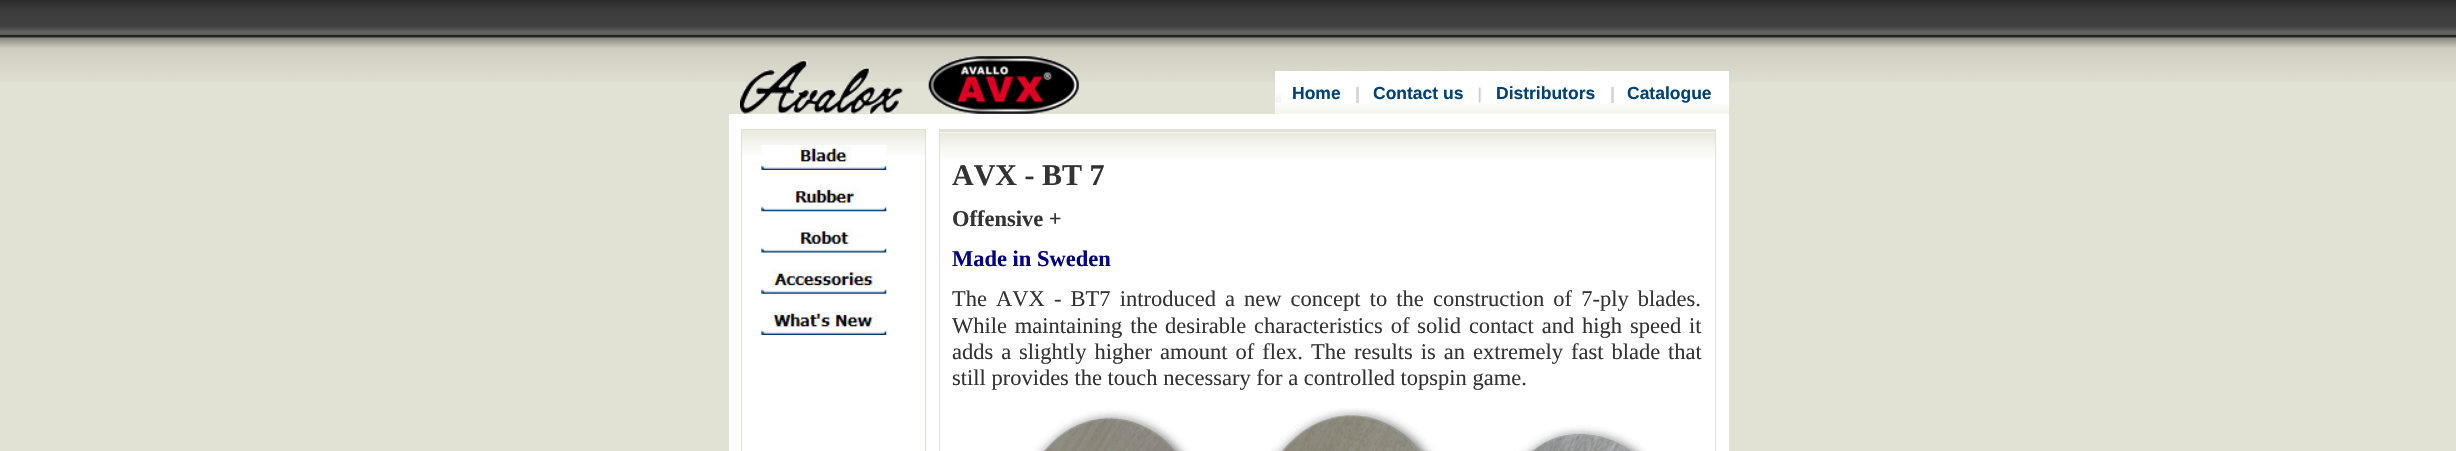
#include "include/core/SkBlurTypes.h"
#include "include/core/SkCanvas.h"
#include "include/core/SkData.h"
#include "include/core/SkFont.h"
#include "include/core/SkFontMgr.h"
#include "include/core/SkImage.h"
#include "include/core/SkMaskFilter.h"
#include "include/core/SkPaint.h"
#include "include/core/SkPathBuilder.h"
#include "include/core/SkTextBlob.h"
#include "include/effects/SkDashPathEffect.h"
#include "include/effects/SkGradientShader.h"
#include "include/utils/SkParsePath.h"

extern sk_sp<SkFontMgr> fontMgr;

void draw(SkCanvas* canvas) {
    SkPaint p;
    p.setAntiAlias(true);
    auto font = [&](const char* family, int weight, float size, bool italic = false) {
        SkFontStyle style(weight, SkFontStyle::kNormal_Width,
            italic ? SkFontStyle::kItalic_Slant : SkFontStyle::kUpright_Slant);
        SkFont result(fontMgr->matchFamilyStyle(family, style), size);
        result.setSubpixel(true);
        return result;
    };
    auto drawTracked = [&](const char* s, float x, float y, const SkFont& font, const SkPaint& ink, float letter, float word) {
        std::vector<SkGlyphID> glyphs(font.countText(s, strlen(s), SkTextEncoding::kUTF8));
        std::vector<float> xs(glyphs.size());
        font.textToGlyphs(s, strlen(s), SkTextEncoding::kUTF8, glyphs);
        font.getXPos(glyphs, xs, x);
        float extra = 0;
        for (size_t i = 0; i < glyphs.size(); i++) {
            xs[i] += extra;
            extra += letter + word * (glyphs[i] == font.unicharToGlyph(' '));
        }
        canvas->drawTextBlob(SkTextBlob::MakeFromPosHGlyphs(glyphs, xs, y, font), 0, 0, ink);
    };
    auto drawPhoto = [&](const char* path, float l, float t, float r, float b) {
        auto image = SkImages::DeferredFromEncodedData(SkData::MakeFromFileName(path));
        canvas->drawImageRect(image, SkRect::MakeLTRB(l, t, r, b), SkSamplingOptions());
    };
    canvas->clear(0xFFE1E1D4);
    drawPhoto("media/1.png", 0, 0, 2456, 82);
    drawPhoto("media/2.png", 740, 60, 903, 114);
    drawPhoto("media/3.png", 928, 56, 1079, 114);
    p.setColor(0xFFFFFFFF);
    canvas->drawRect(SkRect::MakeLTRB(1275, 71, 1729, 114), p);
    drawPhoto("media/4.png", 1275, 104, 1729, 114);
    drawPhoto("media/5.png", 1275, 92, 1282, 103);
    auto font1 = font("Liberation Sans", 700, 17.5f);
    p.setColor(0xFF004176);
    canvas->drawString("Home", 1292, 99, font1, p);
    p.setColor(0xFFD8D8D8);
    canvas->drawRect(SkRect::MakeLTRB(1356, 87, 1359, 103), p);
    p.setColor(0xFF004176);
    canvas->drawString("Contact us", 1373, 99, font1, p);
    drawPhoto("media/6.png", 1478, 87, 1482, 103);
    canvas->drawString("Distributors", 1496, 99, font1, p);
    p.setColor(0xFFD8D8D8);
    canvas->drawRect(SkRect::MakeLTRB(1611, 87, 1614, 103), p);
    p.setColor(0xFF004176);
    canvas->drawString("Catalogue", 1627, 99, font1, p);
    p.setColor(0xFFFFFFFF);
    canvas->drawRect(SkRect::MakeLTRB(729, 114, 1729, 451), p);
    drawPhoto("media/7.png", 742, 130, 927, 156);
    p.setStyle(SkPaint::kStroke_Style);
    p.setStrokeWidth(1);
    p.setColor(0xFFE1E1D4);
    canvas->drawRect(SkRect::MakeLTRB(741.5f, 129.5f, 925.5f, 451.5f), p);
    drawPhoto("media/8.png", 761, 145, 887, 170);
    drawPhoto("media/9.png", 761, 186, 887, 212);
    drawPhoto("media/10.png", 761, 227, 887, 253);
    drawPhoto("media/11.png", 761, 269, 887, 294);
    drawPhoto("media/12.png", 761, 310, 887, 335);
    drawPhoto("media/13.png", 938, 130, 1717, 132);
    p.setStyle(SkPaint::kFill_Style);
    canvas->drawRect(SkRect::MakeLTRB(939, 129, 1716, 131), p);
    drawPhoto("media/14.png", 938, 132, 1717, 159);
    p.setStyle(SkPaint::kStroke_Style);
    canvas->drawRect(SkRect::MakeLTRB(939.5f, 131.5f, 1715.5f, 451.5f), p);
    auto font2 = font("Liberation Serif", 700, 30);
    p.setStyle(SkPaint::kFill_Style);
    p.setColor(0xFF333333);
    canvas->drawString("AVX - BT 7", 952, 185, font2, p);
    auto font3 = font("Liberation Serif", 700, 22.5f);
    canvas->drawString("Offensive +", 952, 226, font3, p);
    p.setColor(0xFF000080);
    canvas->drawString("Made in Sweden", 952, 266, font3, p);
    auto font4 = font("Liberation Serif", 400, 22.5f);
    p.setColor(0xFF333333);
    drawTracked("The AVX - BT7 introduced a", 952, 306, font4, p, 0, 3.5f);
    drawTracked("new concept to the construction of 7-ply blades.", 1244, 306, font4, p, 0, 3.5f);
    drawTracked("While maintaining the", 952, 333, font4, p, 0, 2.25f);
    drawTracked("desirable characteristics of solid contact and high speed it", 1165, 333, font4, p, 0, 2.25f);
    drawTracked("adds a", 952, 359, font4, p, 0, 2.4f);
    drawTracked("slightly higher amount of flex. The results is an extremely fast blade", 1019, 359, font4, p, 0, 2.4f);
    canvas->drawString("that", 1668, 359, font4, p);
    canvas->drawString("still provides the touch necessary for a controlled topspin game.", 952, 385, font4, p);
    drawPhoto("media/15.png", 1034, 408, 1646, 451);
}
